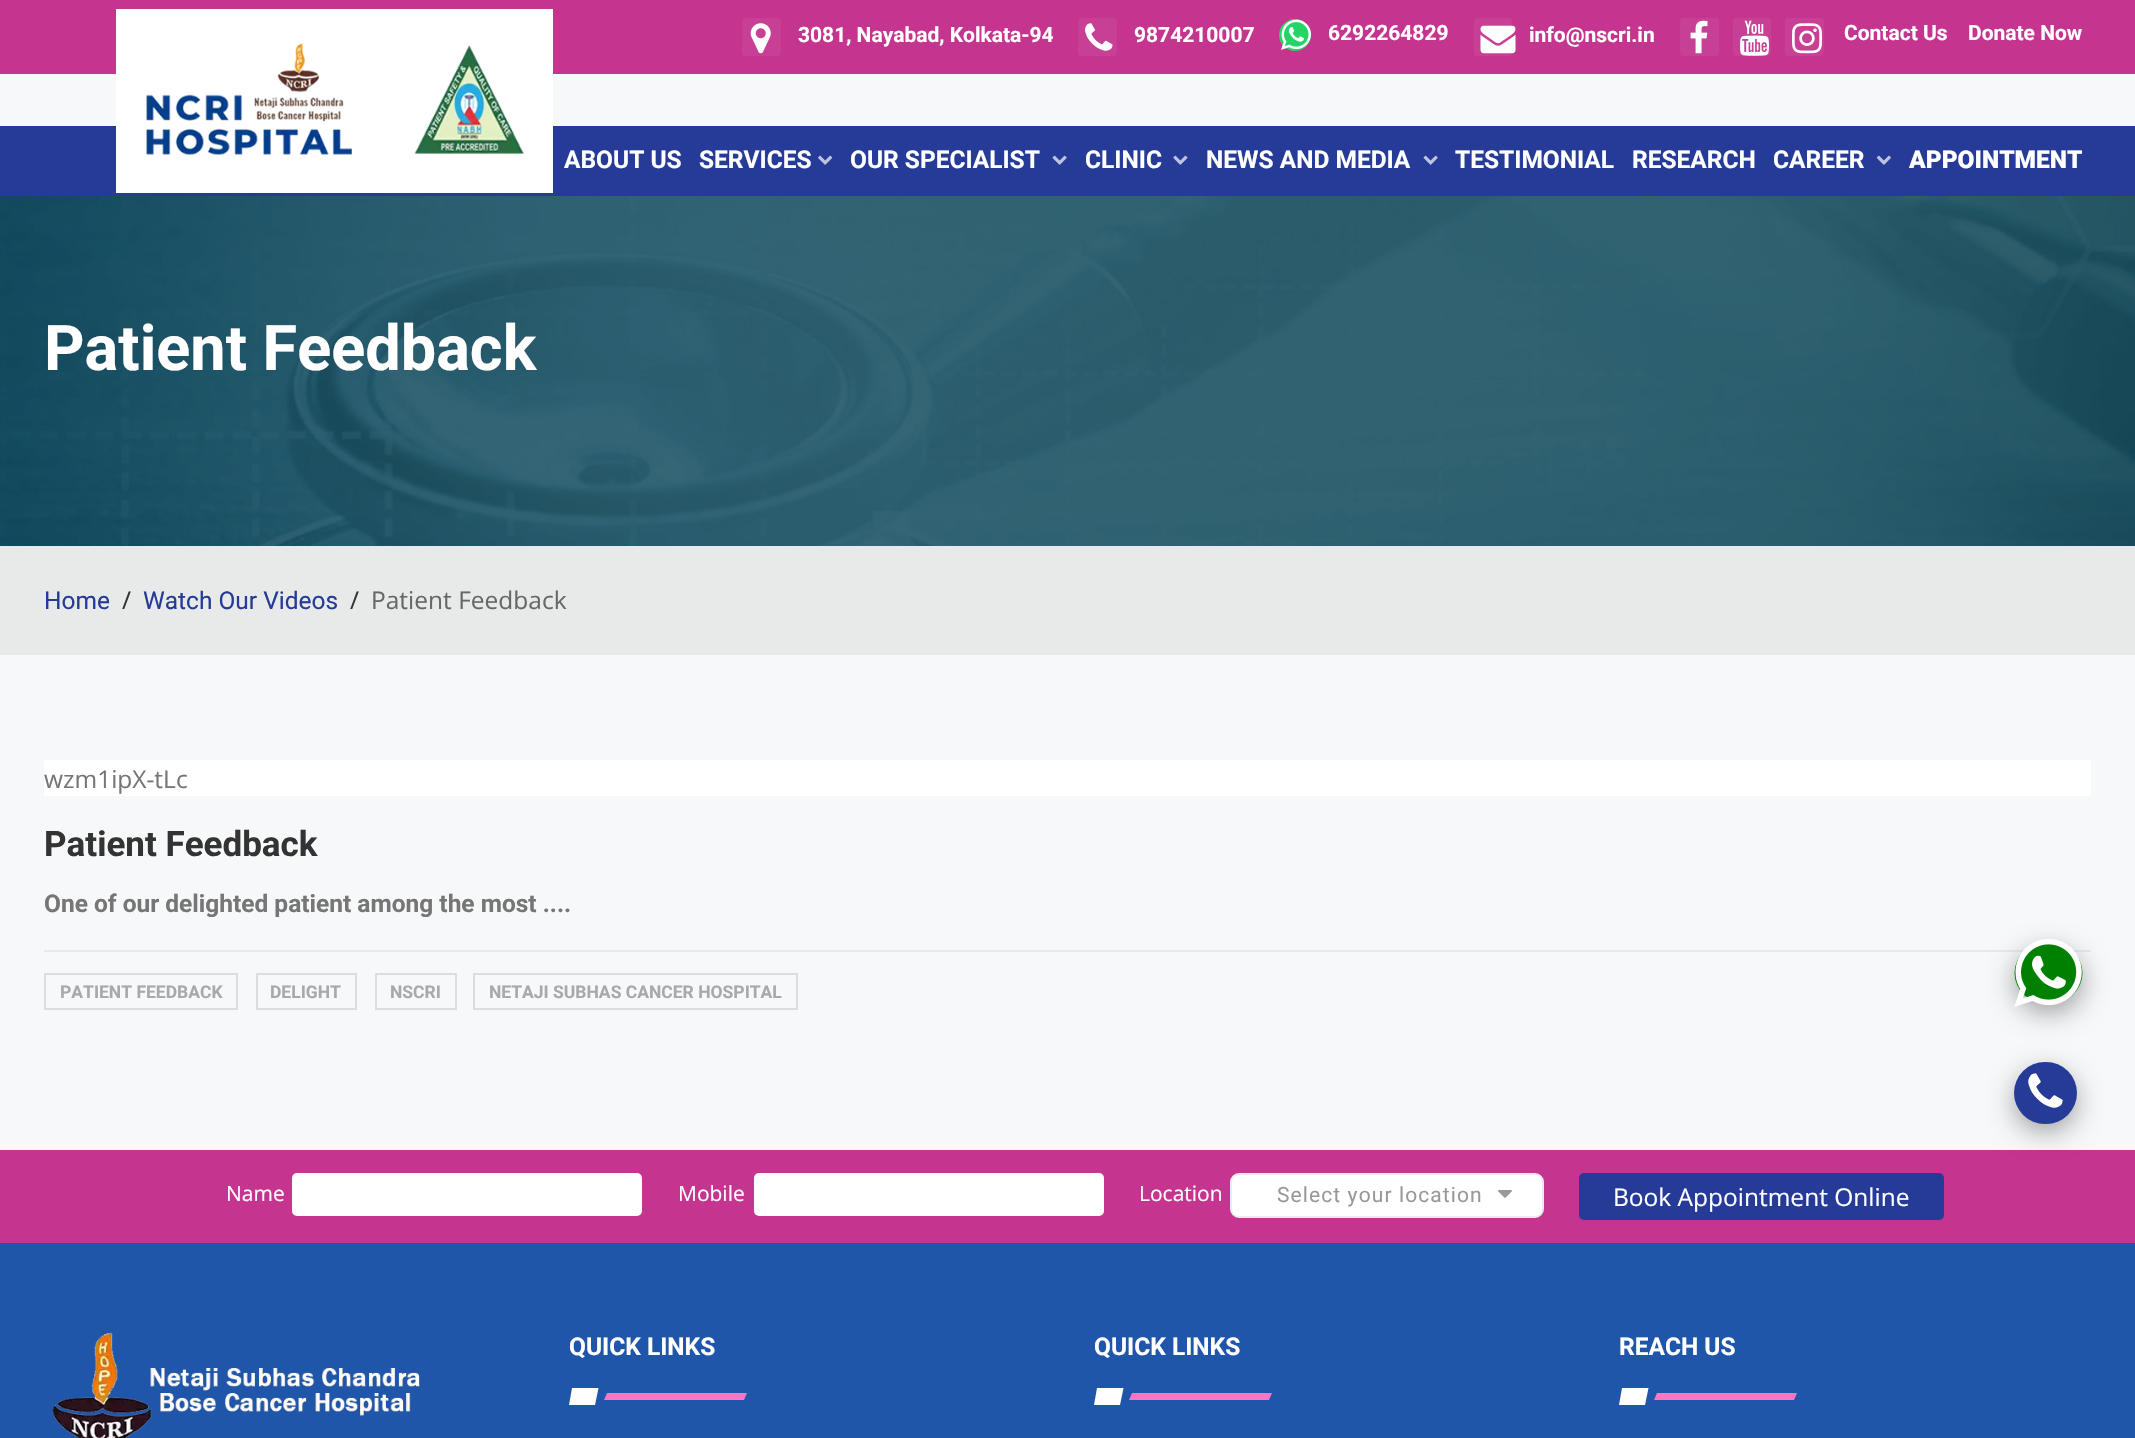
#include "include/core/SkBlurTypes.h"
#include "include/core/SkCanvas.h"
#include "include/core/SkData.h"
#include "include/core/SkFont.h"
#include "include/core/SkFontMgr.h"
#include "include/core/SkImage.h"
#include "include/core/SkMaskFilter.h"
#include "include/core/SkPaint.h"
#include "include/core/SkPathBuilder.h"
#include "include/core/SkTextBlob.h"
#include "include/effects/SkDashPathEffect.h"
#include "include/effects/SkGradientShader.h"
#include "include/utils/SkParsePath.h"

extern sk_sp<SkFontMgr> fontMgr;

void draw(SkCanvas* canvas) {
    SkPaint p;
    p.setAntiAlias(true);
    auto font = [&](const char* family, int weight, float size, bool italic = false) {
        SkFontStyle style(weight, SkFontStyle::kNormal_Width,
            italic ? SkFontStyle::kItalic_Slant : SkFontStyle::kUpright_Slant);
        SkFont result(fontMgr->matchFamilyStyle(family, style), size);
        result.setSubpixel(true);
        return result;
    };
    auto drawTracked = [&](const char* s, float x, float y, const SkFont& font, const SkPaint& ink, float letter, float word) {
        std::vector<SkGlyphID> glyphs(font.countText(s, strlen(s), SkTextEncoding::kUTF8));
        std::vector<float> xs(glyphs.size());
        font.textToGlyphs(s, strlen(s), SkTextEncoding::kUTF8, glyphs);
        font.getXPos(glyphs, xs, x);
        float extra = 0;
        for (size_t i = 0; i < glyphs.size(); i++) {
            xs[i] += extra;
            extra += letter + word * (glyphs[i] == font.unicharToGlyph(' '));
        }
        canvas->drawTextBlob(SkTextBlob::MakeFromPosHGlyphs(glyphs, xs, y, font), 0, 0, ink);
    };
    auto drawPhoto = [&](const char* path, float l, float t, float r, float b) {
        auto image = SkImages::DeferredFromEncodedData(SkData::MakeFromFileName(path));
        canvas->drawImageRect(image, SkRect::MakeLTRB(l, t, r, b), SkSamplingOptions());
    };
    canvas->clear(0xFFF7F8FA);
    p.setColor(0xFFC5348F);
    canvas->drawRect(SkRect::MakeLTRB(0, 0, 2135, 74), p);
    p.setColor(0xFFC84096);
    canvas->drawRoundRect(SkRect::MakeLTRB(742, 18, 781, 56), 4, 4, p);
    drawPhoto("media/1.png", 750, 23, 771, 54);
    auto font1 = font("Roboto", 700, 21);
    p.setColor(0xFFFFFFFF);
    canvas->drawString("3081, Nayabad, Kolkata-94", 798, 42, font1, p);
    p.setColor(0xFFC84096);
    canvas->drawRoundRect(SkRect::MakeLTRB(1078, 18, 1117, 56), 4, 4, p);
    drawPhoto("media/2.png", 1085, 23, 1113, 51);
    p.setColor(0xFFFFFFFF);
    canvas->drawString("9874210007", 1134, 42, font1, p);
    p.setColor(0xFF25D366);
    canvas->drawCircle(1295, 35, 16, p);
    drawPhoto("media/3.png", 1281, 19, 1311, 50);
    p.setColor(0xFFFFFFFF);
    canvas->drawString("6292264829", 1328, 40, font1, p);
    p.setColor(0xFFC84096);
    canvas->drawRoundRect(SkRect::MakeLTRB(1474, 18, 1512, 56), 4, 4, p);
    drawPhoto("media/4.png", 1480, 25, 1516, 54);
    p.setColor(0xFFFFFFFF);
    canvas->drawString("info@nscri.in", 1529, 42, font1, p);
    p.setColor(0xFFC84096);
    canvas->drawRoundRect(SkRect::MakeLTRB(1680, 18, 1719, 56), 4, 4, p);
    drawPhoto("media/5.png", 1690, 20, 1708, 54);
    canvas->drawRoundRect(SkRect::MakeLTRB(1733, 18, 1771, 56), 4, 4, p);
    drawPhoto("media/6.png", 1740, 20, 1769, 56);
    canvas->drawRoundRect(SkRect::MakeLTRB(1785, 18, 1824, 56), 4, 4, p);
    drawPhoto("media/7.png", 1792, 23, 1822, 54);
    p.setColor(0xFFFFFFFF);
    canvas->drawString("Contact Us", 1844, 40, font1, p);
    canvas->drawString("Donate Now", 1968, 40, font1, p);
    p.setColor(0xFF263B98);
    canvas->drawRect(SkRect::MakeLTRB(0, 126, 2135, 196), p);
    p.setColor(0xFFFFFFFF);
    canvas->drawRect(SkRect::MakeLTRB(116, 9, 553, 193), p);
    drawPhoto("media/8.png", 146, 43, 524, 155);
    auto font2 = font("Roboto", 700, 24.5f);
    canvas->drawString("ABOUT US", 564, 168, font2, p);
    canvas->drawString("SERVICES", 699, 168, font2, p);
    drawPhoto("media/9.png", 818, 155, 833, 165);
    canvas->drawString("OUR SPECIALIST", 850, 168, font2, p);
    drawPhoto("media/10.png", 1052, 155, 1067, 165);
    canvas->drawString("CLINIC", 1085, 168, font2, p);
    drawPhoto("media/11.png", 1173, 155, 1188, 165);
    canvas->drawString("NEWS AND MEDIA", 1206, 168, font2, p);
    drawPhoto("media/10.png", 1423, 155, 1438, 165);
    {
        const struct { const char* s; float x, y; } items[] = {
            {"TESTIMONIAL", 1455, 168},
            {"RESEARCH", 1632, 168},
            {"CAREER", 1773, 168},
        };
        for (auto [s, x, y] : items) {
            canvas->drawString(s, x, y, font2, p);
        }
    }
    drawPhoto("media/12.png", 1876, 155, 1891, 165);
    auto font3 = font("Roboto", 900, 24.5f);
    canvas->drawString("APPOINTMENT", 1909, 168, font3, p);
    drawPhoto("media/13.png", 0, 196, 2135, 546);
    auto font4 = font("Roboto", 700, 63);
    canvas->drawString("Patient Feedback", 44, 370, font4, p);
    p.setColor(0xFFE8E9E9);
    canvas->drawRect(SkRect::MakeLTRB(0, 546, 2135, 655), p);
    auto font5 = font("Roboto", 400, 24.5f);
    p.setColor(0xFF263B98);
    canvas->drawString("Home", 44, 609, font5, p);
    auto font6 = font("Open Sans", 400, 24.5f);
    p.setColor(0xFF333333);
    canvas->drawString("/", 122, 609, font6, p);
    p.setColor(0xFF263B98);
    canvas->drawString("Watch Our Videos", 143, 609, font5, p);
    p.setColor(0xFF333333);
    canvas->drawString("/", 350, 609, font6, p);
    p.setColor(0xFF676767);
    canvas->drawString("Patient Feedback", 371, 609, font6, p);
    p.setColor(0xFFFFFFFF);
    canvas->drawRect(SkRect::MakeLTRB(44, 760, 2091, 796), p);
    p.setColor(0xFF767676);
    canvas->drawString("wzm1ipX-tLc", 44, 788, font6, p);
    auto font7 = font("Roboto", 700, 35);
    p.setColor(0xFF333333);
    canvas->drawString("Patient Feedback", 44, 856, font7, p);
    p.setColor(0xFF767676);
    canvas->drawString("One of our delighted patient among the most ....", 44, 912, font2, p);
    p.setColor(0xFFE9E9E9);
    canvas->drawRect(SkRect::MakeLTRB(44, 950, 2091, 952), p);
    p.setStyle(SkPaint::kStroke_Style);
    p.setStrokeWidth(2);
    p.setColor(0xFFDDDDDD);
    canvas->drawRect(SkRect::MakeLTRB(45, 974, 237, 1009), p);
    auto font8 = font("Roboto", 700, 17.5f);
    p.setStyle(SkPaint::kFill_Style);
    p.setColor(0xFFA9A9A9);
    canvas->drawString("PATIENT FEEDBACK", 60, 998, font8, p);
    p.setStyle(SkPaint::kStroke_Style);
    p.setColor(0xFFDDDDDD);
    canvas->drawRect(SkRect::MakeLTRB(257, 974, 356, 1009), p);
    p.setStyle(SkPaint::kFill_Style);
    p.setColor(0xFFA9A9A9);
    canvas->drawString("DELIGHT", 270, 998, font8, p);
    p.setStyle(SkPaint::kStroke_Style);
    p.setColor(0xFFDDDDDD);
    canvas->drawRect(SkRect::MakeLTRB(376, 974, 456, 1009), p);
    p.setStyle(SkPaint::kFill_Style);
    p.setColor(0xFFA9A9A9);
    canvas->drawString("NSCRI", 390, 998, font8, p);
    p.setStyle(SkPaint::kStroke_Style);
    p.setColor(0xFFDDDDDD);
    canvas->drawRect(SkRect::MakeLTRB(474, 974, 797, 1009), p);
    p.setStyle(SkPaint::kFill_Style);
    p.setColor(0xFFA9A9A9);
    canvas->drawString("NETAJI SUBHAS CANCER HOSPITAL", 489, 998, font8, p);
    p.setColor(0xFFC5348F);
    canvas->drawRect(SkRect::MakeLTRB(0, 1150, 2135, 1243), p);
    auto font9 = font("Open Sans", 400, 21);
    p.setColor(0xFFFFFFFF);
    canvas->drawString("Name", 226, 1201, font9, p);
    canvas->drawRoundRect(SkRect::MakeLTRB(292, 1173, 642, 1216), 5, 5, p);
    canvas->drawString("Mobile", 678, 1201, font9, p);
    canvas->drawRoundRect(SkRect::MakeLTRB(754, 1173, 1104, 1216), 5, 5, p);
    canvas->drawString("Location", 1139, 1201, font9, p);
    canvas->drawRoundRect(SkRect::MakeLTRB(1231, 1174, 1543, 1217), 8, 8, p);
    p.setStyle(SkPaint::kStroke_Style);
    p.setColor(0xFFE7ECF1);
    canvas->drawRoundRect(SkRect::MakeLTRB(1231, 1174, 1543, 1217), 8, 8, p);
    auto font10 = font("Roboto", 400, 21);
    p.setStyle(SkPaint::kFill_Style);
    p.setColor(0xFF999999);
    drawTracked("Select your location", 1277, 1202, font10, p, 1.1f, 0);
    drawPhoto("media/14.png", 1498, 1190, 1512, 1198);
    p.setColor(0xFF263B98);
    canvas->drawRoundRect(SkRect::MakeLTRB(1579, 1173, 1944, 1220), 5, 5, p);
    p.setColor(0xFFFFFFFF);
    canvas->drawString("Book Appointment Online", 1613, 1206, font6, p);
    p.setColor(0x59000000);
    p.setMaskFilter(SkMaskFilter::MakeBlur(kNormal_SkBlurStyle, 13));
    canvas->drawRoundRect(SkRect::MakeLTRB(2014, 950, 2083, 1013), 31.5f, 31.5f, p);
    p.setMaskFilter(nullptr);
    p.setColor(0xFF008000);
    canvas->drawOval(SkRect::MakeLTRB(2014.5f, 941.5f, 2082.5f, 1004.5f), p);
    drawPhoto("media/15.png", 2014, 939, 2082, 1007);
    p.setColor(0x59000000);
    p.setMaskFilter(SkMaskFilter::MakeBlur(kNormal_SkBlurStyle, 13));
    canvas->drawRoundRect(SkRect::MakeLTRB(2014, 1071, 2077, 1132), 30.5f, 30.5f, p);
    p.setMaskFilter(nullptr);
    p.setColor(0xFF263B98);
    canvas->drawRoundRect(SkRect::MakeLTRB(2014, 1062, 2077, 1124), 31, 31, p);
    drawPhoto("media/16.png", 2028, 1073, 2063, 1108);
    p.setColor(0xFF1F56A9);
    canvas->drawRect(SkRect::MakeLTRB(0, 1243, 2135, 1438), p);
    drawPhoto("media/17.png", 52, 1332, 420, 1438);
    p.setColor(0xFFFFFFFF);
    canvas->drawString("QUICK LINKS", 569, 1355, font2, p);
    canvas->drawPath(SkPathBuilder().moveTo(572, 1388).lineTo(598.5f, 1388).lineTo(595, 1405).lineTo(569, 1405).close().detach(), p);
    p.setColor(0xFFFB75C4);
    canvas->drawPath(SkPathBuilder().moveTo(607, 1393).lineTo(747, 1393).lineTo(744, 1400).lineTo(604, 1400).close().detach(), p);
    p.setColor(0xFFFFFFFF);
    canvas->drawString("QUICK LINKS", 1094, 1355, font2, p);
    canvas->drawPath(SkPathBuilder().moveTo(1097, 1388).lineTo(1123.5f, 1388).lineTo(1120, 1405).lineTo(1094, 1405).close().detach(), p);
    p.setColor(0xFFFB75C4);
    canvas->drawPath(SkPathBuilder().moveTo(1132, 1393).lineTo(1272, 1393).lineTo(1269, 1400).lineTo(1129, 1400).close().detach(), p);
    p.setColor(0xFFFFFFFF);
    canvas->drawString("REACH US", 1619, 1355, font2, p);
    canvas->drawPath(SkPathBuilder().moveTo(1622, 1388).lineTo(1648.5f, 1388).lineTo(1645, 1405).lineTo(1619, 1405).close().detach(), p);
    p.setColor(0xFFFB75C4);
    canvas->drawPath(SkPathBuilder().moveTo(1657, 1393).lineTo(1797, 1393).lineTo(1794, 1400).lineTo(1654, 1400).close().detach(), p);
}
